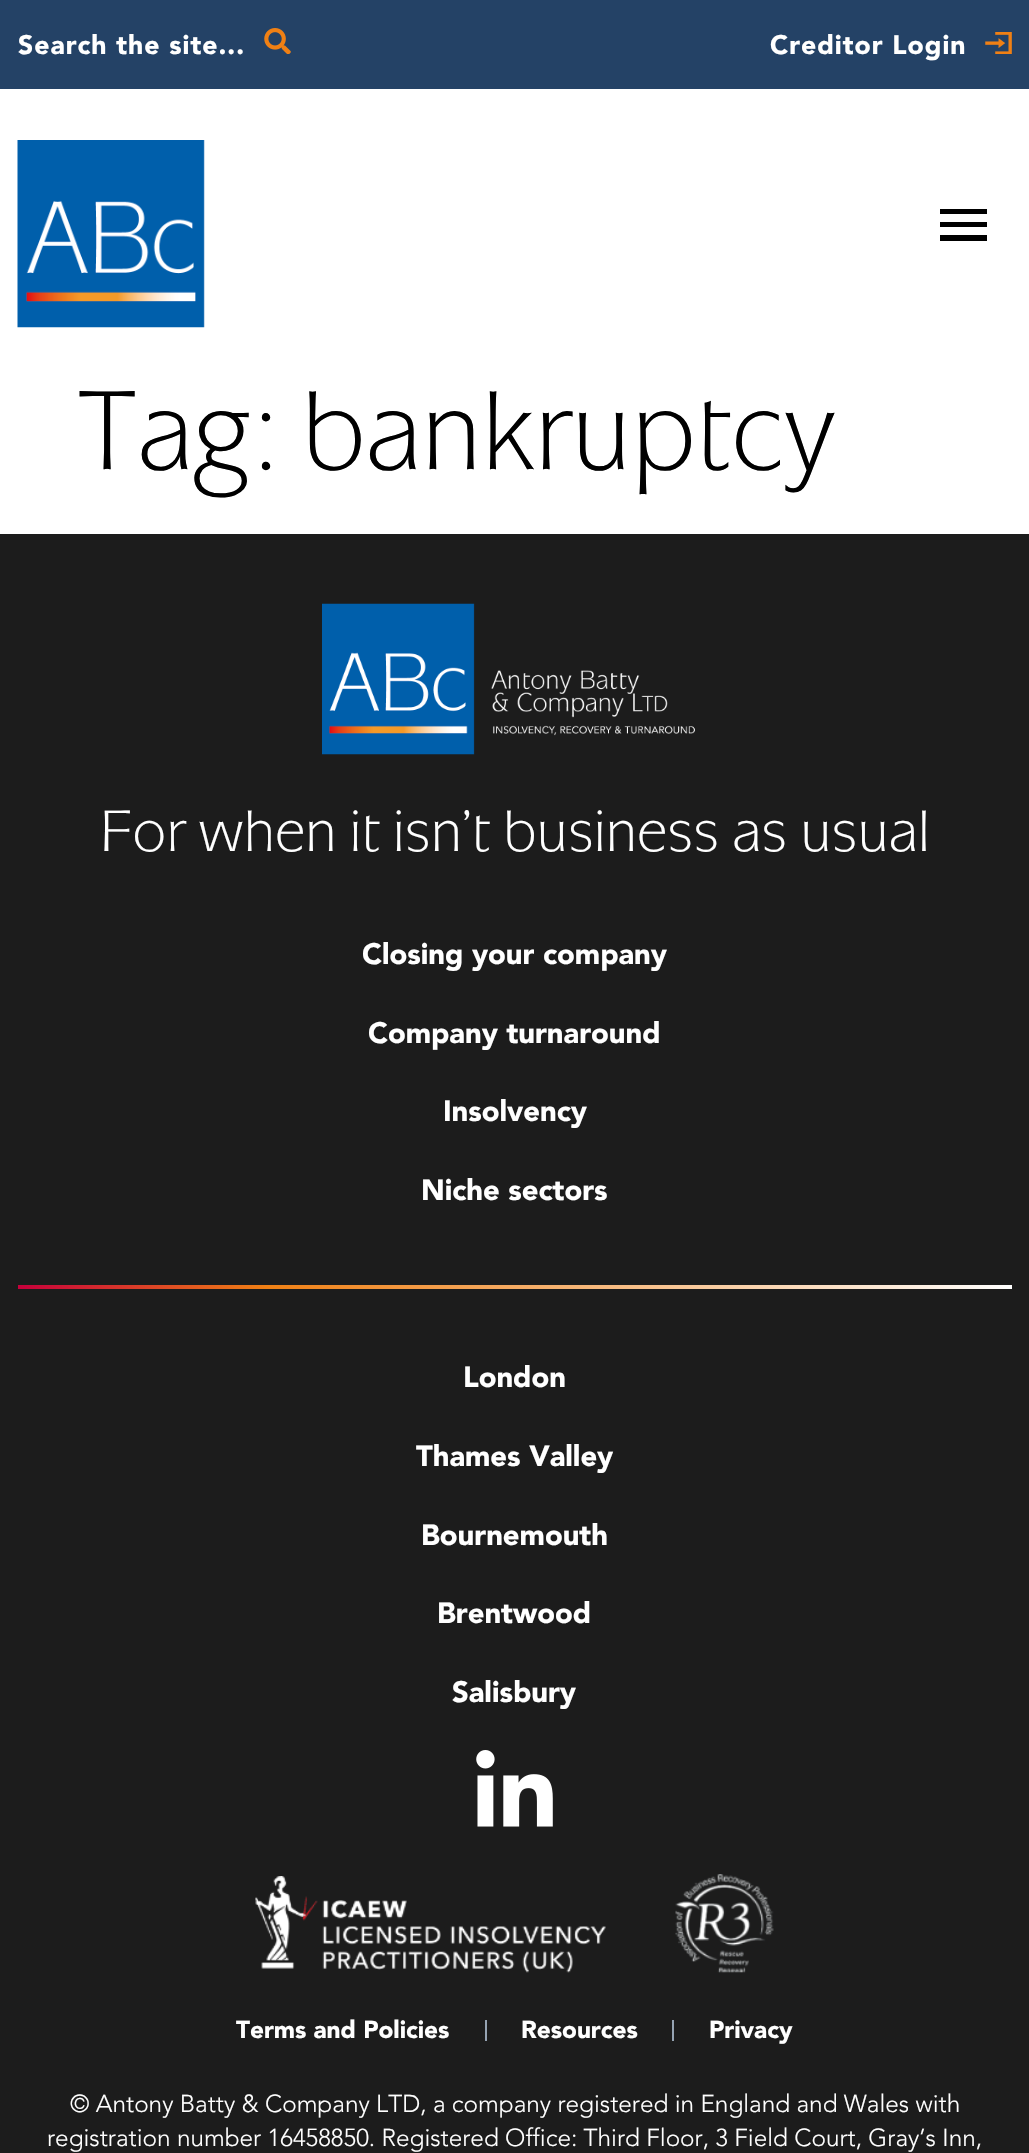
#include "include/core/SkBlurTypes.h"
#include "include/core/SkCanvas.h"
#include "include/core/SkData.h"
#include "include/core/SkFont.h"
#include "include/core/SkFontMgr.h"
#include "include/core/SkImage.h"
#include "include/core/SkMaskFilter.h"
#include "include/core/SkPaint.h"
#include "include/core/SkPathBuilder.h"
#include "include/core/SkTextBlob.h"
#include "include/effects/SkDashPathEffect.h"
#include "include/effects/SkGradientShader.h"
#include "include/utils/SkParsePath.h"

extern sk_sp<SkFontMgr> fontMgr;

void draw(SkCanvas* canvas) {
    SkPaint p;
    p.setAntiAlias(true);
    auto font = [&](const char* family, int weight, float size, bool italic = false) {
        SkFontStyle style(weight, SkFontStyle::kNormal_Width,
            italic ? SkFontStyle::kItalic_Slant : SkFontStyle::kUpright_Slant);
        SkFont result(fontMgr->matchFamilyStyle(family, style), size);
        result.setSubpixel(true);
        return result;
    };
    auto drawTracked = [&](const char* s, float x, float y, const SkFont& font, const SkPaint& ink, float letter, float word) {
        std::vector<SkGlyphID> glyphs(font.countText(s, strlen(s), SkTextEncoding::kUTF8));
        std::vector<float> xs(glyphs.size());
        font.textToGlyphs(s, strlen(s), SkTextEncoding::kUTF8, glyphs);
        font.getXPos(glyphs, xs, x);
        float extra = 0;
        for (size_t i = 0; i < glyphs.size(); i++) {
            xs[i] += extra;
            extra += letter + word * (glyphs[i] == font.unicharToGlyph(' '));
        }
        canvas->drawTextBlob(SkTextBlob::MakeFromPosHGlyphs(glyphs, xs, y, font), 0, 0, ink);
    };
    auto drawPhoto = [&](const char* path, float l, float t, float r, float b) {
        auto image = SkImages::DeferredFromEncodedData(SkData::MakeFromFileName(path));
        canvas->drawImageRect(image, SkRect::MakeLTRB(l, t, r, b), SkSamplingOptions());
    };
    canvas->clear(0xFFFFFFFF);
    p.setColor(0xFF244266);
    canvas->drawRect(SkRect::MakeLTRB(0, 0, 1029, 89), p);
    auto font1 = font("Avenir", 900, 26.5f);
    p.setColor(0xFFFFFFFF);
    drawTracked("Search the site...", 18, 54, font1, p, 1, 0);
    drawPhoto("media/1.png", 264, 28, 291, 54);
    drawTracked("Creditor Login", 770, 54, font1, p, 1, 0);
    drawPhoto("media/2.png", 985, 32, 1012, 54);
    drawPhoto("media/3.png", 17, 140, 205, 328);
    p.setColor(0xFF000000);
    canvas->drawPath(SkPathBuilder().moveTo(940, 241).lineTo(987, 241).lineTo(987, 235).lineTo(940, 235).close().moveTo(940, 227).lineTo(987, 227).lineTo(987, 222).lineTo(940, 222).close().moveTo(940, 209).lineTo(940, 214).lineTo(987, 214).lineTo(987, 209).close().detach(), p);
    auto font2 = font("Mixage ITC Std", 400, 116.25f);
    canvas->drawString("Tag: bankruptcy", 77, 469, font2, p);
    p.setColor(0xFF1C1C1C);
    canvas->drawRect(SkRect::MakeLTRB(0, 534, 1029, 2153), p);
    drawPhoto("media/4.png", 322, 603, 695, 755);
    auto font3 = font("Mixage ITC Std", 400, 60.5f);
    p.setColor(0xFFFFFFFF);
    canvas->drawString("For when it isn’t business as usual", 100, 851, font3, p);
    auto font4 = font("Avenir", 900, 29.1f);
    {
        const struct { const char* s; float x, y; } items[] = {
            {"Closing your company", 362, 964},
            {"Company turnaround", 368, 1043},
            {"Insolvency", 443, 1121},
            {"Niche sectors", 421, 1200},
        };
        for (auto [s, x, y] : items) {
            canvas->drawString(s, x, y, font4, p);
        }
    }
    {
        const SkColor colors[] = {0xFFC6003B, 0xFFF08014, 0xFFFFFFFF};
        const float stops[] = {0, 0.25f, 1};
        const SkPoint ends[] = {{18, 1286}, {1012, 1286}};
        p.setShader(SkGradientShader::MakeLinear(ends, colors, stops, 3, SkTileMode::kClamp));
        p.setAlpha(255);
    }
    canvas->drawRect(SkRect::MakeLTRB(18, 1285, 1012, 1289), p);
    p.setShader(nullptr);
    p.setColor(0xFFFFFFFF);
    {
        const struct { const char* s; float x, y; } items[] = {
            {"London", 463, 1387},
            {"Thames Valley", 416, 1466},
            {"Bournemouth", 421, 1545},
            {"Brentwood", 437, 1623},
            {"Salisbury", 452, 1702},
        };
        for (auto [s, x, y] : items) {
            canvas->drawString(s, x, y, font4, p);
        }
    }
    drawPhoto("media/5.png", 476, 1750, 553, 1827);
    drawPhoto("media/6.png", 255, 1876, 606, 1973);
    drawPhoto("media/7.png", 675, 1874, 774, 1973);
    auto font5 = font("Avenir", 900, 24.35f);
    canvas->drawString("Terms and Policies", 236, 2038, font5, p);
    p.setColor(0xFF95A3B2);
    canvas->drawRect(SkRect::MakeLTRB(485, 2020, 487, 2041), p);
    p.setColor(0xFFFFFFFF);
    canvas->drawString("Resources", 521, 2038, font5, p);
    p.setColor(0xFF95A3B2);
    canvas->drawRect(SkRect::MakeLTRB(672, 2020, 674, 2041), p);
    p.setColor(0xFFFFFFFF);
    canvas->drawString("Privacy", 709, 2038, font5, p);
    auto font6 = font("Avenir", 300, 24.35f);
    canvas->drawString("© Antony Batty & Company LTD, a company registered in England and Wales with", 70, 2112, font6, p);
    canvas->drawString("registration number 16458850. Registered Office: Third Floor, 3 Field Court, Gray’s Inn,", 47, 2146, font6, p);
}
